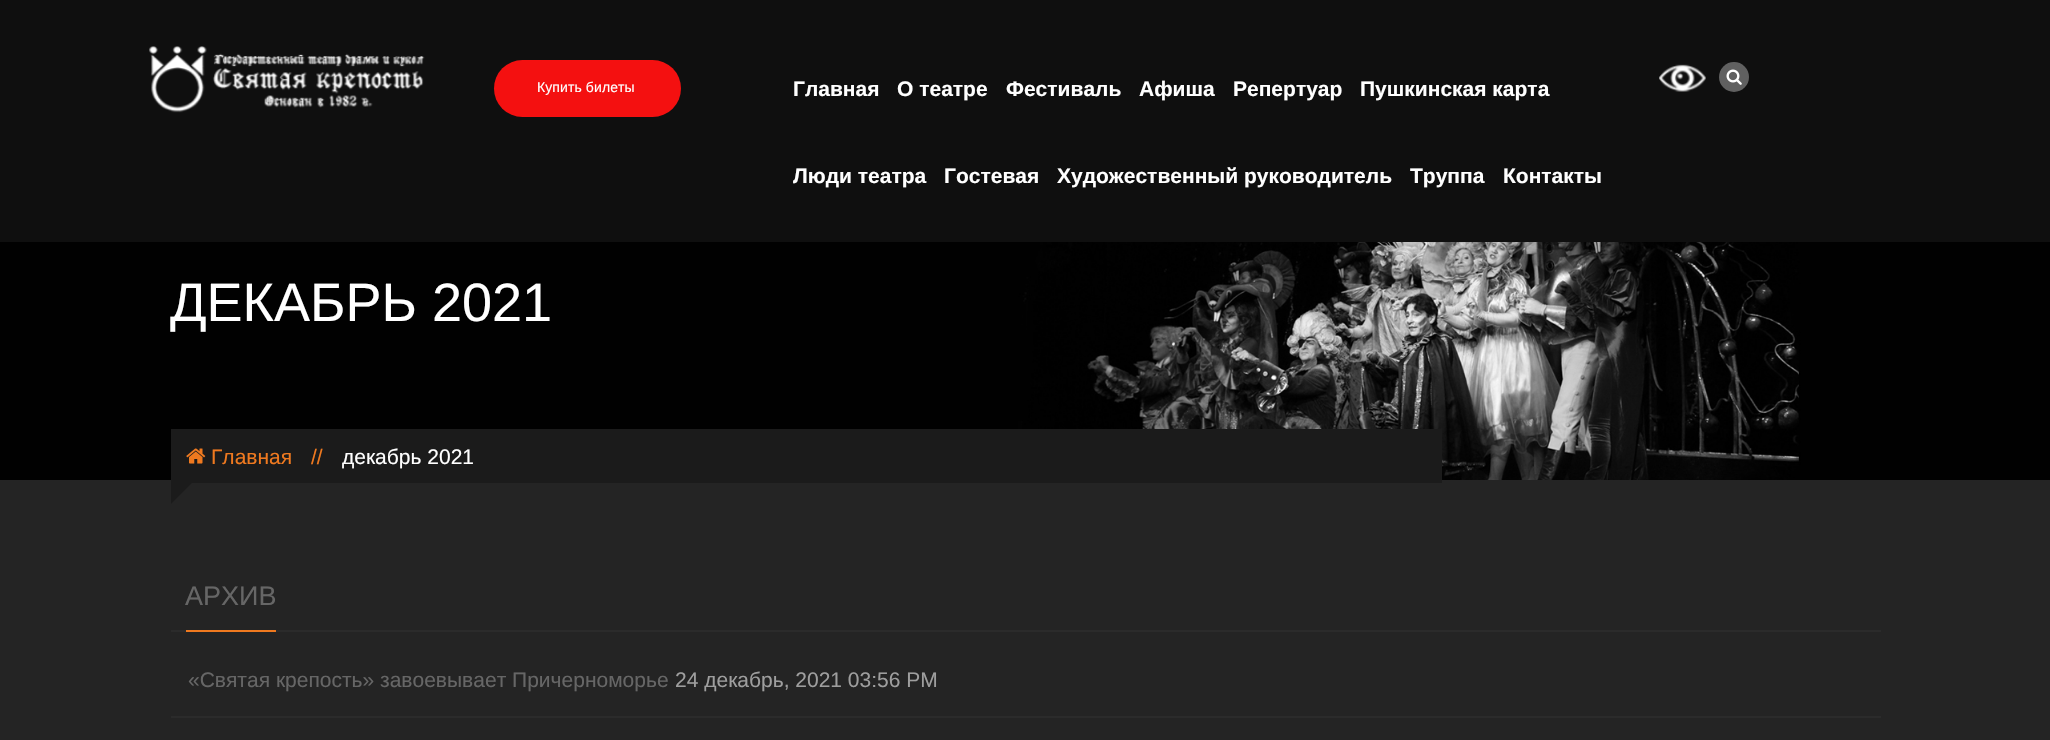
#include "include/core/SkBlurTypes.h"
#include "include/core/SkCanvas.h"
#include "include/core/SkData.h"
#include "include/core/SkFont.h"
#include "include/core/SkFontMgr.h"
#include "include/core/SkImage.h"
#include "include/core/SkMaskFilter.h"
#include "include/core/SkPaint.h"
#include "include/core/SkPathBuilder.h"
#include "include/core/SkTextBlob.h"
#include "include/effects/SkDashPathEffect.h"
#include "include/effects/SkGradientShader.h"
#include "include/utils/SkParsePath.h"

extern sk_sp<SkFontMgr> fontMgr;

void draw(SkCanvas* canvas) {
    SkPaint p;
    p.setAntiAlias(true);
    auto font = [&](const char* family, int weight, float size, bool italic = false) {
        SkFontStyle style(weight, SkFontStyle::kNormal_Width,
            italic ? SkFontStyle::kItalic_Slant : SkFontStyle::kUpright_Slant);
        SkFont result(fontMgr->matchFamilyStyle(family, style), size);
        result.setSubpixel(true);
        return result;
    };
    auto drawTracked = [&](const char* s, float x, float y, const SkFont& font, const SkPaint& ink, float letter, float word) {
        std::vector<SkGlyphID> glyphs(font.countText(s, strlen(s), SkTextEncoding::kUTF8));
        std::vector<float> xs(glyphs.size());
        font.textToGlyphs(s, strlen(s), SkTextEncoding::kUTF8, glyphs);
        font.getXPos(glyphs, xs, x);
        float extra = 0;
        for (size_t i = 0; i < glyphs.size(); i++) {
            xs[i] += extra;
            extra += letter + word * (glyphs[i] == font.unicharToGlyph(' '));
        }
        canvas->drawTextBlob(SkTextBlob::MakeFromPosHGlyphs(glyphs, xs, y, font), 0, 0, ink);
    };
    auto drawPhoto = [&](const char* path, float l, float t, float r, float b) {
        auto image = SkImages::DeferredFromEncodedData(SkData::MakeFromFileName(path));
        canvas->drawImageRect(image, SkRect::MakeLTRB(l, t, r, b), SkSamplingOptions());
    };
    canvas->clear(0xFF242424);
    p.setColor(0xFF0F0F0F);
    canvas->drawRect(SkRect::MakeLTRB(0, 0, 2050, 242), p);
    drawPhoto("media/1.png", 149, 46, 425, 113);
    drawPhoto("media/2.png", 1659, 64, 1706, 92);
    p.setColor(0xFF606060);
    canvas->drawCircle(1734, 77, 15, p);
    drawPhoto("media/3.png", 1726, 69, 1742, 85);
    p.setColor(0xFFF41010);
    canvas->drawRoundRect(SkRect::MakeLTRB(494, 60, 681, 117), 28.5f, 28.5f, p);
    auto font1 = font("Liberation Sans", 400, 14);
    p.setColor(0xFFFFFFFF);
    drawTracked("Купить билеты", 537, 92, font1, p, 0.1f, 0);
    auto font2 = font("Liberation Sans", 700, 21);
    {
        const struct { const char* s; float x, y; } items[] = {
            {"Главная", 793, 96},
            {"О театре", 897, 96},
            {"Фестиваль", 1006, 96},
            {"Афиша", 1139, 96},
            {"Репертуар", 1233, 96},
            {"Пушкинская карта", 1360, 96},
            {"Люди театра", 793, 183},
            {"Гостевая", 944, 183},
            {"Художественный руководитель", 1057, 183},
            {"Труппа", 1410, 183},
            {"Контакты", 1503, 183},
        };
        for (auto [s, x, y] : items) {
            canvas->drawString(s, x, y, font2, p);
        }
    }
    drawPhoto("media/4.png", 0, 242, 2050, 480);
    auto font3 = font("Liberation Sans", 400, 54);
    canvas->drawString("ДЕКАБРЬ 2021", 170, 321, font3, p);
    p.setColor(0xFF1B1B1B);
    canvas->drawRect(SkRect::MakeLTRB(171, 429, 1442, 483), p);
    drawPhoto("media/5.png", 186, 448, 206, 464);
    auto font4 = font("Liberation Sans", 400, 21);
    p.setColor(0xFFEF791F);
    canvas->drawString("Главная", 211, 464, font4, p);
    canvas->drawString("//", 311, 464, font4, p);
    p.setColor(0xFFFFFFFF);
    canvas->drawString("декабрь 2021", 342, 464, font4, p);
    p.setColor(0xFF1B1B1B);
    canvas->drawPath(SkPathBuilder().moveTo(171, 504).lineTo(171, 462).lineTo(192, 483).close().detach(), p);
    p.setColor(0xFF2B2B2B);
    canvas->drawRect(SkRect::MakeLTRB(171, 630, 1881, 632), p);
    auto font5 = font("Liberation Sans", 400, 27);
    p.setColor(0xFF666666);
    canvas->drawString("АРХИВ", 185, 605, font5, p);
    p.setColor(0xFFEF791F);
    canvas->drawRect(SkRect::MakeLTRB(186, 630, 276, 632), p);
    p.setColor(0xFF2B2B2B);
    canvas->drawRect(SkRect::MakeLTRB(171, 716, 1881, 718), p);
    p.setColor(0xFF666666);
    canvas->drawString("«Святая крепость» завоевывает Причерноморье", 188, 687, font4, p);
    p.setColor(0xFF9E9E9E);
    canvas->drawString("24 декабрь, 2021 03:56 PM", 675, 687, font4, p);
}
